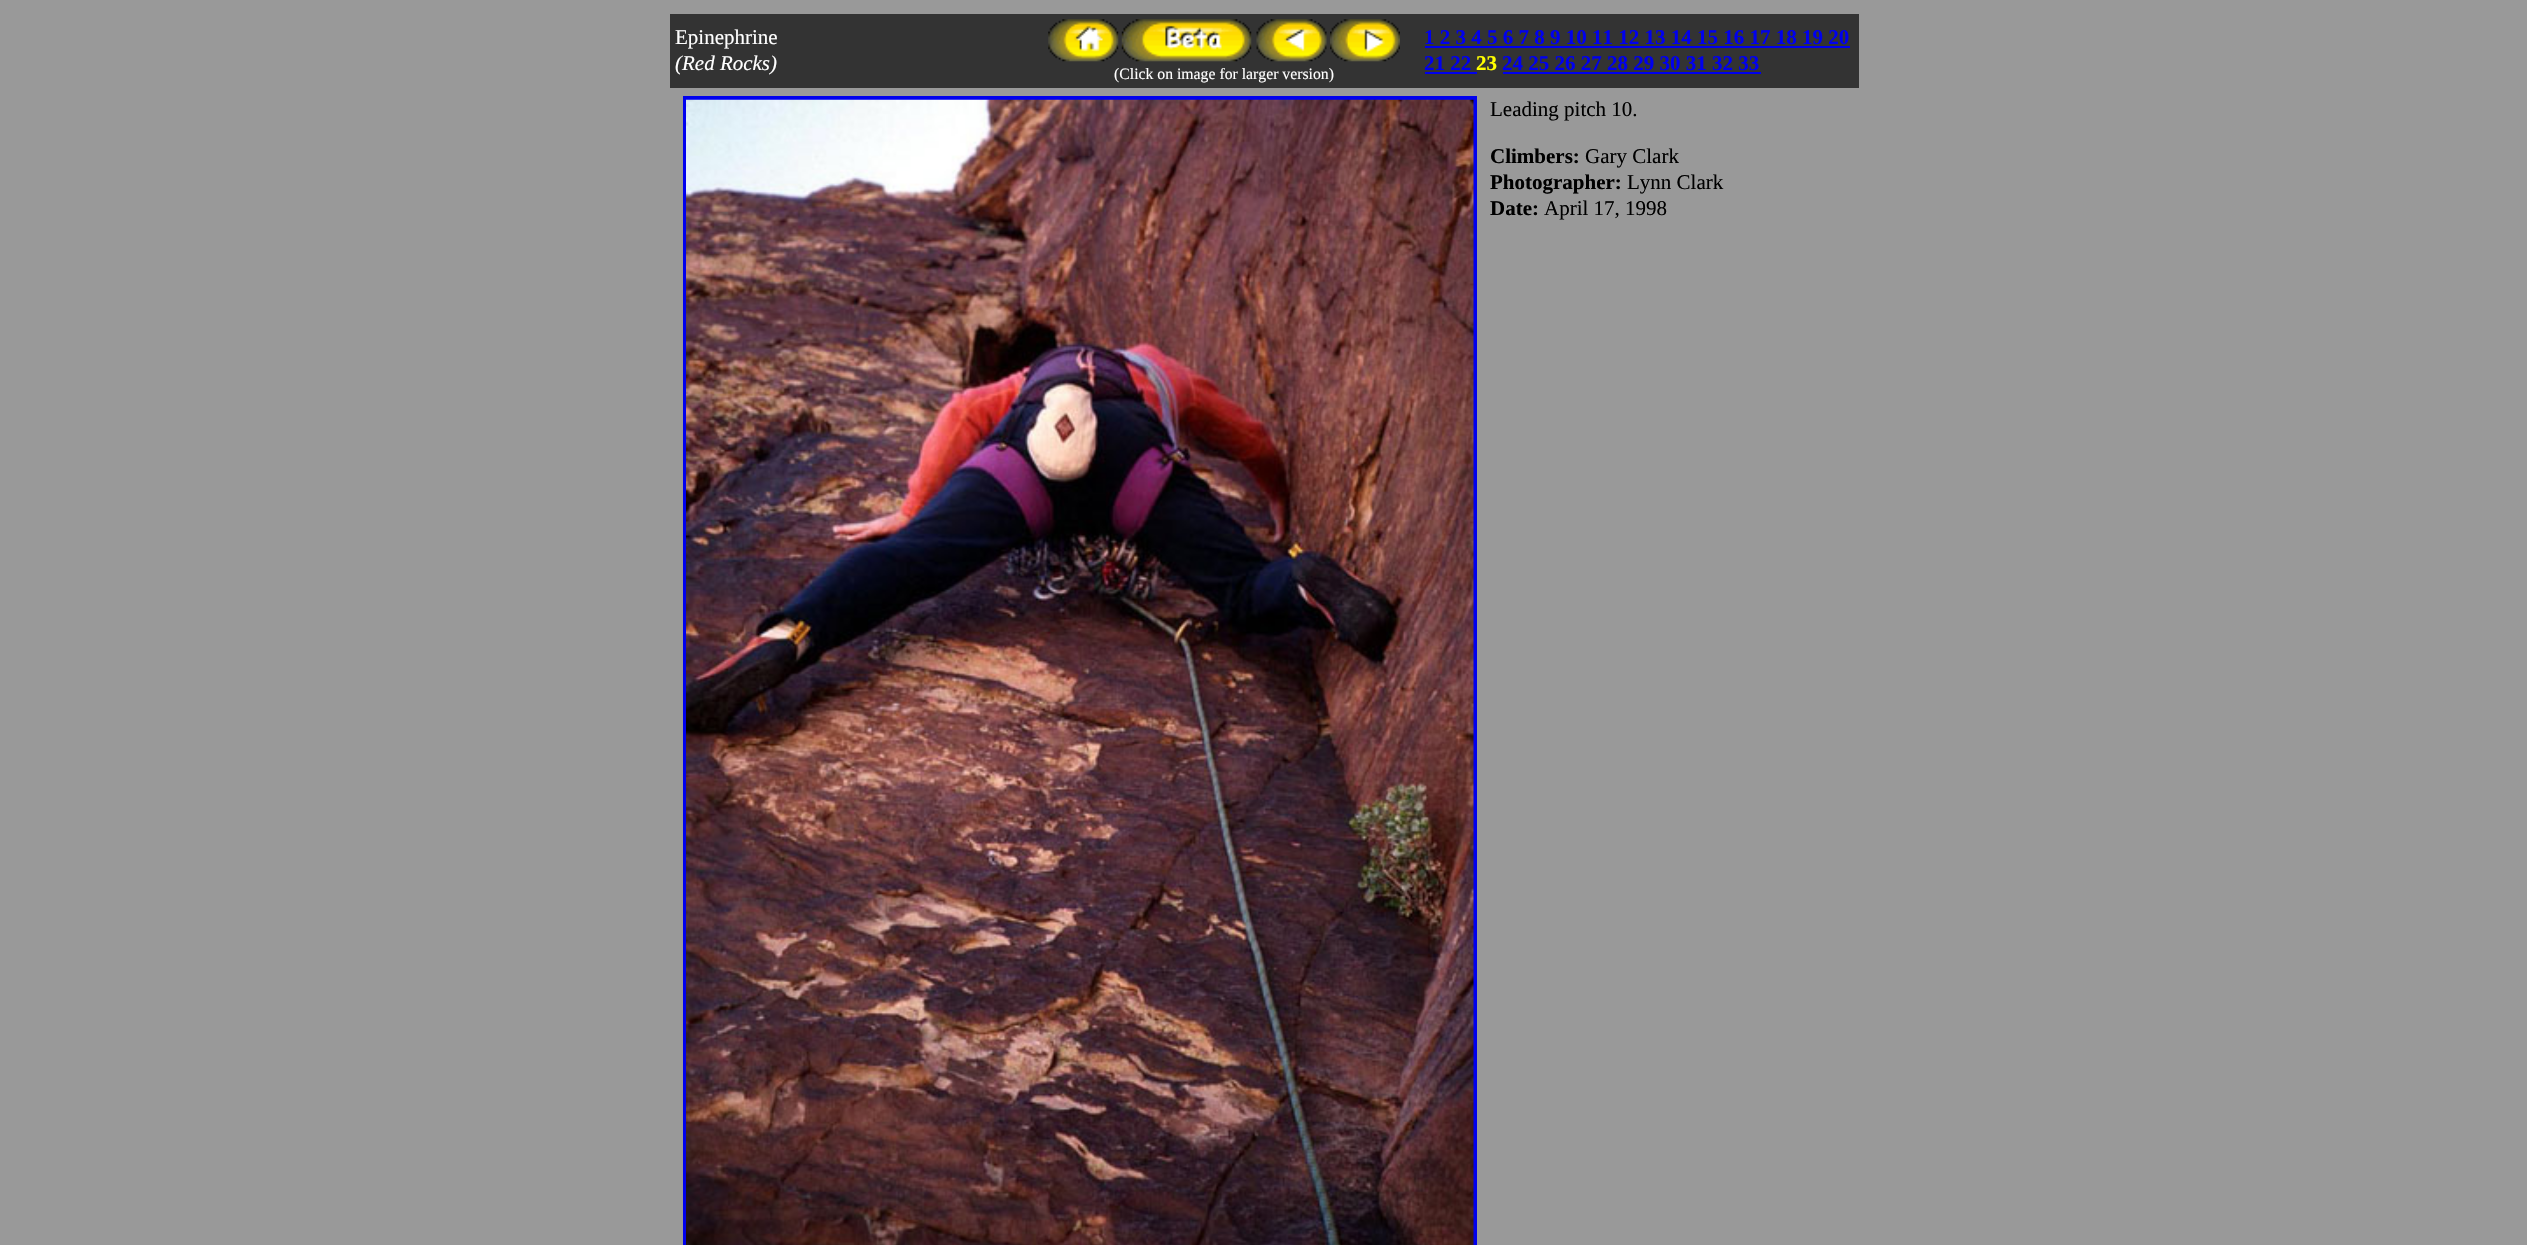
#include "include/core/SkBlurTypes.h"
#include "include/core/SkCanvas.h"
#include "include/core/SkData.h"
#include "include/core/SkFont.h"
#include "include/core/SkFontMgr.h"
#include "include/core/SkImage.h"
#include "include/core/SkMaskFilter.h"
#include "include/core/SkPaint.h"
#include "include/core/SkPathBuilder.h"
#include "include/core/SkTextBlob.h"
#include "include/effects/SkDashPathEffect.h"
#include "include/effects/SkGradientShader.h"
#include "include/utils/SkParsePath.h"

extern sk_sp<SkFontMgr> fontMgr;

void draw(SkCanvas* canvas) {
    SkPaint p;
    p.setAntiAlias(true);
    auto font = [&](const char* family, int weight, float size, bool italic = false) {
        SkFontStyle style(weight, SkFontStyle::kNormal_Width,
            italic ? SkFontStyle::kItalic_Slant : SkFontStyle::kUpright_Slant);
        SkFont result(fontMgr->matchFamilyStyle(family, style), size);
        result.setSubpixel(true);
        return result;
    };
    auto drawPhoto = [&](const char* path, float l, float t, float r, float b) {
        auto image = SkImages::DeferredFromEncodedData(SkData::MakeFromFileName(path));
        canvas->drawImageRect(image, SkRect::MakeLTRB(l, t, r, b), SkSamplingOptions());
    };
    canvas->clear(0xFF999999);
    p.setColor(0xFF333333);
    canvas->drawRect(SkRect::MakeLTRB(670, 14, 1859, 88), p);
    auto font1 = font("Liberation Serif", 400, 21);
    p.setColor(0xFFFFFFFF);
    canvas->drawString("Epinephrine", 675, 44, font1, p);
    auto font2 = font("Liberation Serif", 400, 21, true);
    canvas->drawString("(Red Rocks)", 675, 70, font2, p);
    auto font3 = font("Liberation Serif", 700, 21);
    p.setColor(0xFF0000EE);
    canvas->drawString("1 2 3 4 5 6 7 8 9 10 11 12 13 14 15 16 17 18 19 20", 1424, 44, font3, p);
    canvas->drawRect(SkRect::MakeLTRB(1425, 46, 1850, 48), p);
    canvas->drawString("21 22", 1424, 70, font3, p);
    canvas->drawRect(SkRect::MakeLTRB(1425, 72, 1477, 74), p);
    p.setColor(0xFFFFFF00);
    canvas->drawString("23", 1476, 70, font3, p);
    p.setColor(0xFF0000EE);
    canvas->drawString("24 25 26 27 28 29 30 31 32 33", 1502, 70, font3, p);
    canvas->drawRect(SkRect::MakeLTRB(1503, 72, 1761, 74), p);
    drawPhoto("media/1.png", 1048, 19, 1119, 62);
    drawPhoto("media/2.png", 1121, 19, 1252, 62);
    drawPhoto("media/3.png", 1256, 19, 1327, 62);
    drawPhoto("media/4.png", 1330, 19, 1400, 62);
    auto font4 = font("Liberation Serif", 400, 15.75f);
    p.setColor(0xFFFFFFFF);
    canvas->drawString("(Click on image for larger version)", 1114, 79, font4, p);
    p.setStyle(SkPaint::kStroke_Style);
    p.setStrokeWidth(4);
    p.setColor(0xFF0000EE);
    canvas->drawRect(SkRect::MakeLTRB(685, 98, 1475, 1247), p);
    drawPhoto("media/5.png", 686, 99, 1474, 1245);
    p.setStyle(SkPaint::kFill_Style);
    p.setColor(0xFF000000);
    canvas->drawString("Leading pitch 10.", 1490, 116, font1, p);
    canvas->drawString("Climbers:", 1490, 163, font3, p);
    canvas->drawString("Gary Clark", 1585, 163, font1, p);
    canvas->drawString("Photographer:", 1490, 189, font3, p);
    canvas->drawString("Lynn Clark", 1627, 189, font1, p);
    canvas->drawString("Date:", 1490, 215, font3, p);
    canvas->drawString("April 17, 1998", 1544, 215, font1, p);
}
